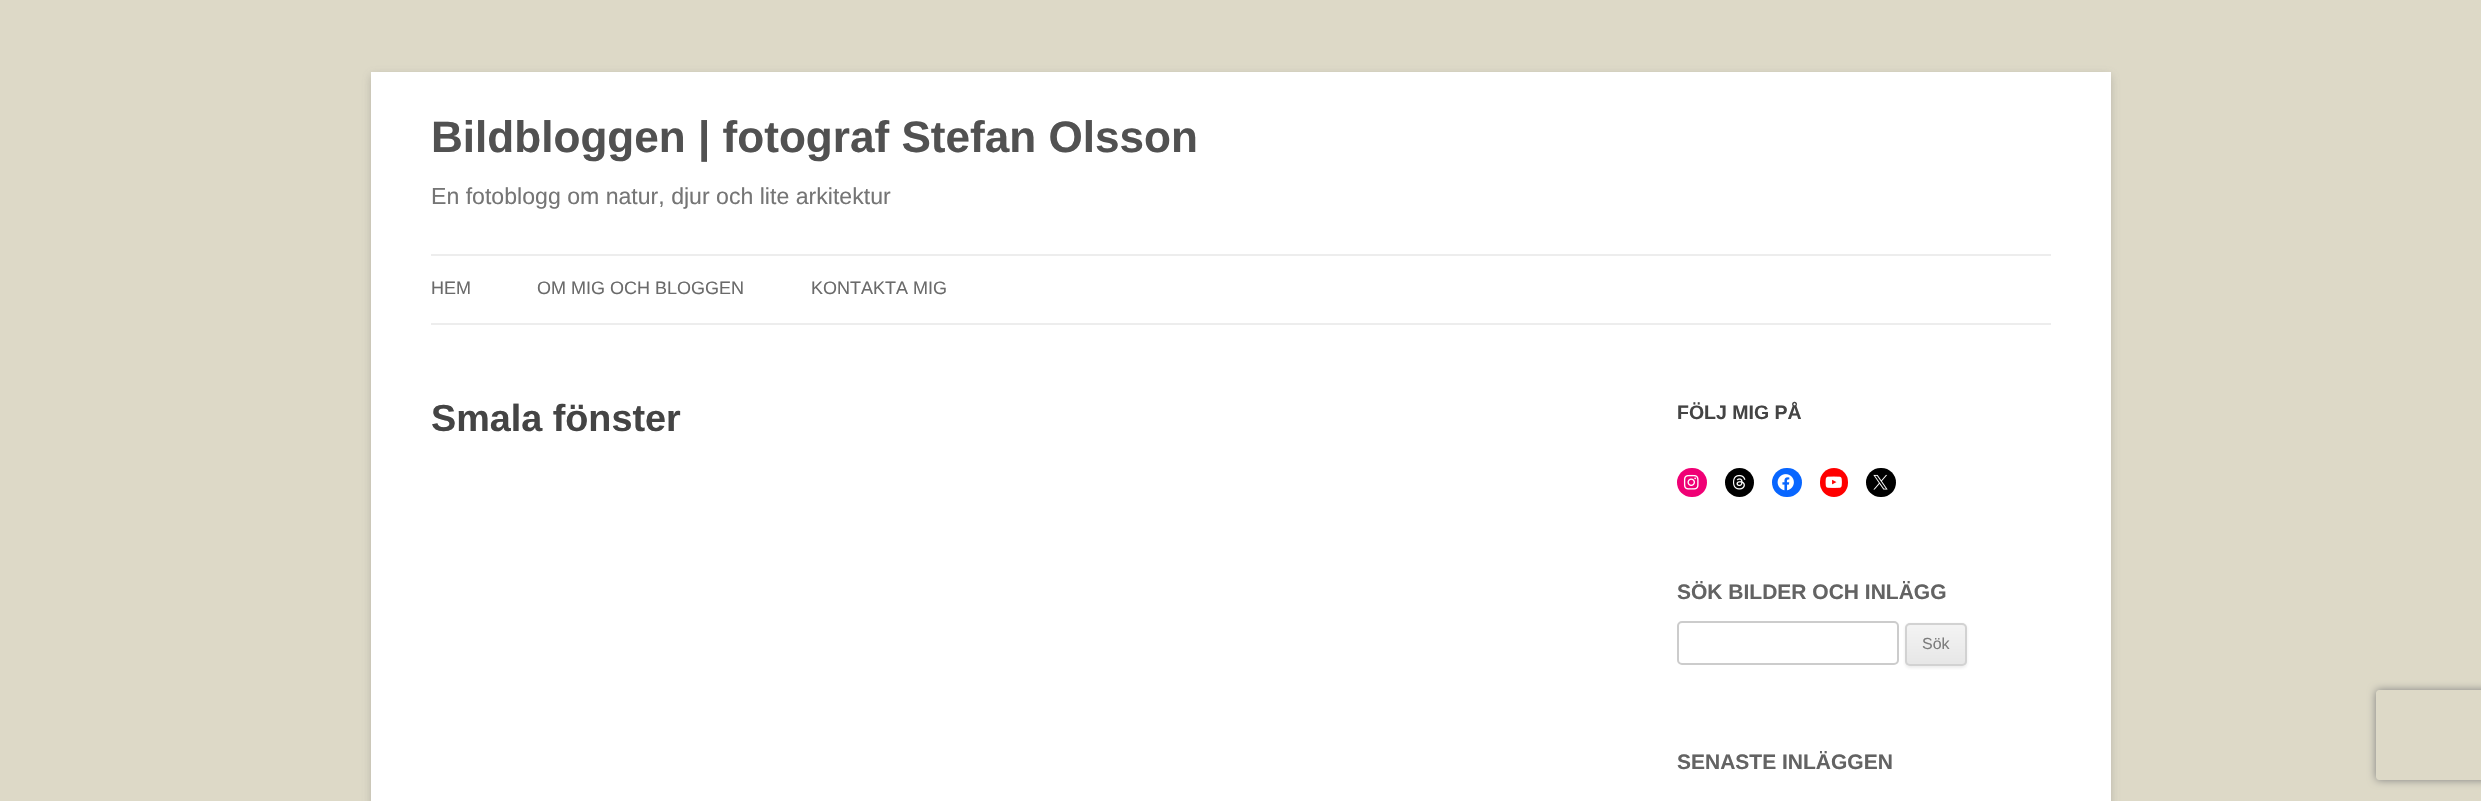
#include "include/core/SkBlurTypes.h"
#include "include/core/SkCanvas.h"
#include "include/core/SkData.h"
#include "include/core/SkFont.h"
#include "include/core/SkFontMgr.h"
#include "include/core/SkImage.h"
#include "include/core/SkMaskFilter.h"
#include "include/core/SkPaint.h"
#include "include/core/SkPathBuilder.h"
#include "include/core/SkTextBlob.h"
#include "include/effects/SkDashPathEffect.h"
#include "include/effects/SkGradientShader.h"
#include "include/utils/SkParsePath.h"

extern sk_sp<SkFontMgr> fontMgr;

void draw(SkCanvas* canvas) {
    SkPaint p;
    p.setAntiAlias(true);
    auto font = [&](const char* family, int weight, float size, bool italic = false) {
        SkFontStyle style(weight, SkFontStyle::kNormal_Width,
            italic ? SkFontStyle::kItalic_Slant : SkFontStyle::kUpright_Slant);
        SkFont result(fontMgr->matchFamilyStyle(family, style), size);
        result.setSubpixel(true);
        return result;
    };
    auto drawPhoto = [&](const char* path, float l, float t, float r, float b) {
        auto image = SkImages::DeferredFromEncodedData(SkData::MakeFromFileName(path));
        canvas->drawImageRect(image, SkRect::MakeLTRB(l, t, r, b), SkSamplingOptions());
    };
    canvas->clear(0xFFDDD9C7);
    p.setColor(0x4D646464);
    p.setMaskFilter(SkMaskFilter::MakeBlur(kNormal_SkBlurStyle, 4.5f));
    canvas->drawRect(SkRect::MakeLTRB(371, 75, 2111, 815), p);
    p.setMaskFilter(nullptr);
    p.setColor(0xFFFFFFFF);
    canvas->drawRect(SkRect::MakeLTRB(371, 72, 2111, 801), p);
    auto font1 = font("Liberation Sans", 700, 44.1f);
    p.setColor(0xFF515151);
    canvas->drawString("Bildbloggen | fotograf Stefan Olsson", 431, 152, font1, p);
    auto font2 = font("Liberation Sans", 400, 23.1f);
    p.setColor(0xFF757575);
    canvas->drawString("En fotoblogg om natur, djur och lite arkitektur", 431, 204, font2, p);
    p.setColor(0xFFEDEDED);
    canvas->drawRect(SkRect::MakeLTRB(431, 254, 2051, 256), p);
    canvas->drawRect(SkRect::MakeLTRB(431, 323, 2051, 325), p);
    auto font3 = font("Liberation Sans", 400, 18);
    p.setColor(0xFF6A6A6A);
    {
        const struct { const char* s; float x, y; } items[] = {
            {"HEM", 431, 294},
            {"OM MIG OCH BLOGGEN", 537, 294},
            {"KONTAKTA MIG", 811, 294},
        };
        for (auto [s, x, y] : items) {
            canvas->drawString(s, x, y, font3, p);
        }
    }
    auto font4 = font("Liberation Sans", 700, 37.75f);
    p.setColor(0xFF444444);
    canvas->drawString("Smala fönster", 431, 431, font4, p);
    auto font5 = font("Liberation Sans", 700, 19.5f);
    canvas->drawString("FÖLJ MIG PÅ", 1677, 419, font5, p);
    p.setColor(0xFFF00075);
    canvas->drawRoundRect(SkRect::MakeLTRB(1677, 468, 1707, 497), 14.5f, 14.5f, p);
    drawPhoto("media/1.png", 1683, 474, 1699, 490);
    p.setColor(0xFF000000);
    canvas->drawCircle(1739.5f, 482.5f, 14.5f, p);
    drawPhoto("media/2.png", 1733, 474, 1746, 490);
    p.setColor(0xFF0866FF);
    canvas->drawRoundRect(SkRect::MakeLTRB(1772, 468, 1802, 497), 14.5f, 14.5f, p);
    drawPhoto("media/3.png", 1777, 474, 1794, 491);
    p.setColor(0xFFFF0000);
    canvas->drawRoundRect(SkRect::MakeLTRB(1820, 468, 1848, 497), 14, 14, p);
    drawPhoto("media/4.png", 1825, 476, 1842, 488);
    p.setColor(0xFF000000);
    canvas->drawRoundRect(SkRect::MakeLTRB(1866, 468, 1896, 497), 14.5f, 14.5f, p);
    drawPhoto("media/5.png", 1873, 474, 1888, 490);
    auto font6 = font("Liberation Sans", 700, 21);
    p.setColor(0xFF636363);
    canvas->drawString("SÖK BILDER OCH INLÄGG", 1677, 599, font6, p);
    p.setStyle(SkPaint::kStroke_Style);
    p.setStrokeWidth(2);
    p.setColor(0xFFCCCCCC);
    canvas->drawRoundRect(SkRect::MakeLTRB(1678, 622, 1898, 664), 4, 4, p);
    p.setStyle(SkPaint::kFill_Style);
    p.setColor(0x1A404040);
    p.setMaskFilter(SkMaskFilter::MakeBlur(kNormal_SkBlurStyle, 1.5f));
    canvas->drawRoundRect(SkRect::MakeLTRB(1905, 624, 1967, 668), 5, 5, p);
    p.setMaskFilter(nullptr);
    canvas->save();
    canvas->clipPath(SkPathBuilder().moveTo(1910, 623).lineTo(1962, 623).cubicTo(1965, 623, 1967, 625, 1967, 628).lineTo(1967, 661).cubicTo(1967, 664, 1965, 666, 1962, 666).lineTo(1910, 666).cubicTo(1907, 666, 1905, 664, 1905, 661).lineTo(1905, 628).cubicTo(1905, 625, 1907, 623, 1910, 623).close().detach(), true);
    {
        const SkColor colors[] = {0xFFF4F4F4, 0xFFE6E6E6};
        const float stops[] = {0, 1};
        const SkPoint ends[] = {{1936, 624}, {1936, 665}};
        p.setShader(SkGradientShader::MakeLinear(ends, colors, stops, 2, SkTileMode::kClamp));
        p.setAlpha(255);
    }
    canvas->drawRect(SkRect::MakeLTRB(1905, 624, 1967, 665), p);
    canvas->restore();
    p.setStyle(SkPaint::kStroke_Style);
    p.setShader(nullptr);
    p.setColor(0xFFD2D2D2);
    canvas->drawRoundRect(SkRect::MakeLTRB(1906, 624, 1966, 665), 4, 4, p);
    auto font7 = font("Liberation Sans", 400, 16);
    p.setStyle(SkPaint::kFill_Style);
    p.setColor(0xFF7C7C7C);
    canvas->drawString("Sök", 1922, 649, font7, p);
    p.setColor(0xFF636363);
    canvas->drawString("SENASTE INLÄGGEN", 1677, 769, font6, p);
    canvas->save();
    canvas->clipPath(SkPathBuilder(SkPathFillType::kEvenOdd).moveTo(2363, 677).lineTo(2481, 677).lineTo(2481, 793).lineTo(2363, 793).close().moveTo(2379, 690).lineTo(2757, 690).cubicTo(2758.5f, 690, 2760, 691.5f, 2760, 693).lineTo(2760, 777).cubicTo(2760, 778.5f, 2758.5f, 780, 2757, 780).lineTo(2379, 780).cubicTo(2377.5f, 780, 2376, 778.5f, 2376, 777).lineTo(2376, 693).cubicTo(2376, 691.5f, 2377.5f, 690, 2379, 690).close().detach(), true);
    p.setColor(0xFF808080);
    p.setMaskFilter(SkMaskFilter::MakeBlur(kNormal_SkBlurStyle, 4));
    canvas->drawRoundRect(SkRect::MakeLTRB(2376, 690, 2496, 780), 3, 3, p);
    p.setMaskFilter(nullptr);
    canvas->restore();
}
